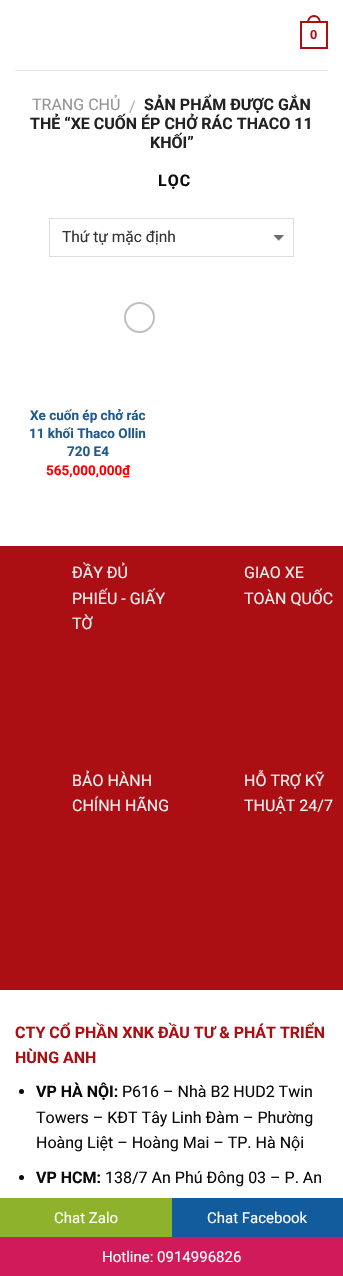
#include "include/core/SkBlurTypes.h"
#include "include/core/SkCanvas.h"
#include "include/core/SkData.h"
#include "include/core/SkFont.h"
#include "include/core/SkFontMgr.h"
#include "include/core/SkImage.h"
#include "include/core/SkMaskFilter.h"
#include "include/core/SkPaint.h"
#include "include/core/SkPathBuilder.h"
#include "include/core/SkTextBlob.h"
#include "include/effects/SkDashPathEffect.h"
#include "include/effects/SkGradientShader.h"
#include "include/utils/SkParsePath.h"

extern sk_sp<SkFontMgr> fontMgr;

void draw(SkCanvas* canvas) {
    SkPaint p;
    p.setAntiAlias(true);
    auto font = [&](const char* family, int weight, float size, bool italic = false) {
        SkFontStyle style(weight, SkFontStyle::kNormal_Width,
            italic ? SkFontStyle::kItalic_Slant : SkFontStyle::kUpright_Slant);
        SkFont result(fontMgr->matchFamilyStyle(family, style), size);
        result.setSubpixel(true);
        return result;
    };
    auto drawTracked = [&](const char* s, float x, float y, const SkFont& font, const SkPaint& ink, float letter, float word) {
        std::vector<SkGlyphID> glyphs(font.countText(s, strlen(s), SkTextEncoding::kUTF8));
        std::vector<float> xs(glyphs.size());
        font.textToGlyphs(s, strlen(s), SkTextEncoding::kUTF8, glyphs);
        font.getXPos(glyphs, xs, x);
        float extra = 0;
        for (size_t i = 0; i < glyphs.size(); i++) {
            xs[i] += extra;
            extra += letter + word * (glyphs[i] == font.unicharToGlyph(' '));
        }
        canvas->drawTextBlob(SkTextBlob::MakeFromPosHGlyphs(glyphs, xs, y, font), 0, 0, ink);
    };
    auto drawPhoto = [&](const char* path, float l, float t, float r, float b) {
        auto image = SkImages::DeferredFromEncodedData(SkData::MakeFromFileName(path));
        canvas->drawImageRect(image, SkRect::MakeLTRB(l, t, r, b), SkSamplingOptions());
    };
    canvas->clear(0xFFFFFFFF);
    p.setStyle(SkPaint::kStroke_Style);
    p.setStrokeWidth(2);
    p.setColor(0xFFAB0F14);
    canvas->drawRect(SkRect::MakeLTRB(301, 22, 327, 48), p);
    p.setStyle(SkPaint::kFill_Style);
    canvas->drawPath(SkPathBuilder(SkPathFillType::kEvenOdd).moveTo(314, 15).cubicTo(318.5f, 15, 321, 19, 321, 23).lineTo(307, 23).cubicTo(307, 19, 309.5f, 15, 314, 15).close().moveTo(314, 17).cubicTo(317.5f, 17, 319, 20, 319, 23).lineTo(309, 23).cubicTo(309, 20, 310.5f, 17, 314, 17).close().detach(), p);
    auto font1 = font("Liberation Sans", 700, 13);
    canvas->drawString("0", 310, 39, font1, p);
    p.setColor(0xFFE7E7E7);
    canvas->drawRect(SkRect::MakeLTRB(15, 70, 328, 71), p);
    auto font2 = font("Roboto", 400, 16);
    p.setColor(0xFF949494);
    canvas->drawString("TRANG CHỦ", 32, 110, font2, p);
    p.setColor(0xFFB2B2B2);
    canvas->drawString("/", 129, 112, font2, p);
    auto font3 = font("Roboto", 700, 16);
    p.setColor(0xFF222222);
    {
        const struct { const char* s; float x, y; } items[] = {
            {"SẢN PHẨM ĐƯỢC GẮN", 144, 110},
            {"THẺ “XE CUỐN ÉP CHỞ RÁC THACO 11", 30, 129},
            {"KHỐI”", 150, 148},
        };
        for (auto [s, x, y] : items) {
            canvas->drawString(s, x, y, font3, p);
        }
    }
    p.setColor(0xFF0A0A0A);
    drawTracked("LỌC", 158, 186, font3, p, 1, 0);
    drawPhoto("media/1.png", 273, 235, 285, 241);
    p.setStyle(SkPaint::kStroke_Style);
    p.setStrokeWidth(1);
    p.setColor(0xFFDDDDDD);
    canvas->drawRect(SkRect::MakeLTRB(49.5f, 218.5f, 293.5f, 256.5f), p);
    auto font4 = font("Roboto", 400, 15.5f);
    p.setStyle(SkPaint::kFill_Style);
    p.setColor(0xFF333333);
    canvas->drawString("Thứ tự mặc định", 62, 242, font4, p);
    p.setStyle(SkPaint::kStroke_Style);
    p.setStrokeWidth(2);
    p.setColor(0xFFC0C0C0);
    canvas->drawCircle(139.5f, 317.5f, 14.5f, p);
    auto font5 = font("Roboto", 700, 13.5f);
    p.setStyle(SkPaint::kFill_Style);
    p.setColor(0xFF205A8D);
    {
        const struct { const char* s; float x, y; } items[] = {
            {"Xe cuốn ép chở rác", 30, 420},
            {"11 khối Thaco Ollin", 29, 438},
            {"720 E4", 67, 456},
        };
        for (auto [s, x, y] : items) {
            canvas->drawString(s, x, y, font5, p);
        }
    }
    p.setColor(0xFFFF0000);
    canvas->drawString("565,000,000₫", 46, 475, font5, p);
    p.setColor(0xFFAB0F14);
    canvas->drawRect(SkRect::MakeLTRB(0, 546, 343, 990), p);
    p.setColor(0xFFF1F1F1);
    {
        const struct { const char* s; float x, y; } items[] = {
            {"ĐẦY ĐỦ", 72, 578},
            {"PHIẾU - GIẤY", 72, 604},
            {"TỜ", 72, 629},
            {"GIAO XE", 244, 578},
            {"TOÀN QUỐC", 244, 604},
            {"BẢO HÀNH", 72, 786},
            {"CHÍNH HÃNG", 72, 811},
            {"HỖ TRỢ KỸ", 244, 786},
            {"THUẬT 24/7", 244, 811},
        };
        for (auto [s, x, y] : items) {
            canvas->drawString(s, x, y, font2, p);
        }
    }
    p.setColor(0xFFAB0F14);
    canvas->drawString("CTY CỔ PHẦN XNK ĐẦU TƯ & PHÁT TRIỂN", 15, 1038, font3, p);
    canvas->drawString("HÙNG ANH", 15, 1063, font3, p);
    p.setColor(0xFF0A0A0A);
    canvas->drawCircle(21.5f, 1091.5f, 2.5f, p);
    canvas->drawString("VP HÀ NỘI:", 36, 1097, font3, p);
    {
        const struct { const char* s; float x, y; } items[] = {
            {"P616 – Nhà B2 HUD2 Twin", 122, 1097},
            {"Towers – KĐT Tây Linh Đàm – Phường", 36, 1123},
            {"Hoàng Liệt – Hoàng Mai – TP. Hà Nội", 36, 1148},
        };
        for (auto [s, x, y] : items) {
            canvas->drawString(s, x, y, font2, p);
        }
    }
    canvas->drawCircle(21.5f, 1177.5f, 2.5f, p);
    canvas->drawString("VP HCM:", 36, 1183, font3, p);
    canvas->drawString("138/7 An Phú Đông 03 – P. An", 105, 1183, font2, p);
    p.setColor(0xFF8EB22B);
    canvas->drawRect(SkRect::MakeLTRB(0, 1198, 172, 1237), p);
    auto font6 = font("Roboto", 400, 15);
    p.setColor(0xFFFFFFFF);
    canvas->drawString("Chat Zalo", 54, 1223, font6, p);
    p.setColor(0xFF125C9E);
    canvas->drawRect(SkRect::MakeLTRB(172, 1198, 343, 1237), p);
    p.setColor(0xFFFFFFFF);
    canvas->drawString("Chat Facebook", 207, 1223, font6, p);
    p.setColor(0xFFD11A59);
    canvas->drawRect(SkRect::MakeLTRB(0, 1237, 343, 1276), p);
    p.setColor(0xFFFFFFFF);
    canvas->drawString("Hotline: 0914996826", 102, 1262, font6, p);
}
